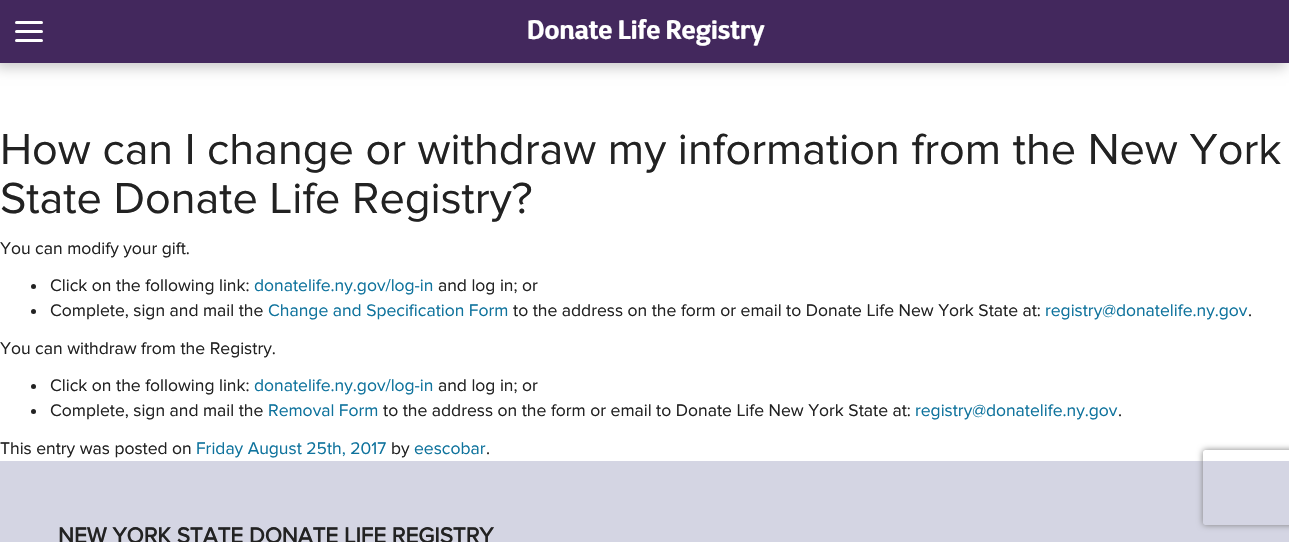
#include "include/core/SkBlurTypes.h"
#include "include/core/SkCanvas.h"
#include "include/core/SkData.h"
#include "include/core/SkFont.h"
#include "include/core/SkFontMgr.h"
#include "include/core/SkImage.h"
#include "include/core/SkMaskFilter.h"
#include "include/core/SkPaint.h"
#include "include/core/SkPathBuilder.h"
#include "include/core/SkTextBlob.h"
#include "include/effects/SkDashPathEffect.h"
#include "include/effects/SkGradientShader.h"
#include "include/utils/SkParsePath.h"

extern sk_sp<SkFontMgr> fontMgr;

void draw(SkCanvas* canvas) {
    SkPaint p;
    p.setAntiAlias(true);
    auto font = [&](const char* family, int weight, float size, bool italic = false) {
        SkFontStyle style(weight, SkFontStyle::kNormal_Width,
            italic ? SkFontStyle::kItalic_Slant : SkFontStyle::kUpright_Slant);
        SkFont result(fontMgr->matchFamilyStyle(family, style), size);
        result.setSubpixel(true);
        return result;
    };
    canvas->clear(0xFFFFFFFF);
    p.setColor(0x33000000);
    p.setMaskFilter(SkMaskFilter::MakeBlur(kNormal_SkBlurStyle, 6));
    canvas->drawRect(SkRect::MakeLTRB(-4, 5, 1286, 68), p);
    p.setMaskFilter(nullptr);
    p.setColor(0xFF43285D);
    canvas->drawRect(SkRect::MakeLTRB(0, 0, 1289, 63), p);
    p.setColor(0xFFFFFFFF);
    canvas->drawRoundRect(SkRect::MakeLTRB(15, 21, 43, 24), 1.5f, 1.5f, p);
    canvas->drawRoundRect(SkRect::MakeLTRB(15, 30, 43, 33), 1.5f, 1.5f, p);
    canvas->drawRoundRect(SkRect::MakeLTRB(15, 39, 43, 42), 1.5f, 1.5f, p);
    auto font1 = font("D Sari", 700, 26.75f);
    canvas->drawString("Donate Life Registry", 527, 39, font1, p);
    auto font2 = font("Proxima Nova", 400, 45);
    p.setColor(0xFF222222);
    canvas->drawString("How can I change or withdraw my information from the New York", 0, 164, font2, p);
    canvas->drawString("State Donate Life Registry?", 0, 213, font2, p);
    auto font3 = font("Proxima Nova", 400, 17.5f);
    canvas->drawString("You can modify your gift.", 0, 254, font3, p);
    canvas->drawCircle(33.5f, 286.5f, 2.5f, p);
    canvas->drawString("Click on the following link:", 50, 291, font3, p);
    p.setColor(0xFF0F739D);
    canvas->drawString("donatelife.ny.gov/log-in", 254, 291, font3, p);
    p.setColor(0xFF222222);
    canvas->drawString("and log in; or", 438, 291, font3, p);
    canvas->drawCircle(33.5f, 311.5f, 2.5f, p);
    canvas->drawString("Complete, sign and mail the", 50, 316, font3, p);
    p.setColor(0xFF0F739D);
    canvas->drawString("Change and Specification Form", 268, 316, font3, p);
    p.setColor(0xFF222222);
    canvas->drawString("to the address on the form or email to Donate Life New York State at:", 513, 316, font3, p);
    p.setColor(0xFF0F739D);
    canvas->drawString("registry@donatelife.ny.gov", 1045, 316, font3, p);
    p.setColor(0xFF222222);
    canvas->drawString(".", 1248, 316, font3, p);
    canvas->drawString("You can withdraw from the Registry.", 0, 354, font3, p);
    canvas->drawCircle(33.5f, 386.5f, 2.5f, p);
    canvas->drawString("Click on the following link:", 50, 391, font3, p);
    p.setColor(0xFF0F739D);
    canvas->drawString("donatelife.ny.gov/log-in", 254, 391, font3, p);
    p.setColor(0xFF222222);
    canvas->drawString("and log in; or", 438, 391, font3, p);
    canvas->drawCircle(33.5f, 411.5f, 2.5f, p);
    canvas->drawString("Complete, sign and mail the", 50, 416, font3, p);
    p.setColor(0xFF0F739D);
    canvas->drawString("Removal Form", 268, 416, font3, p);
    p.setColor(0xFF222222);
    canvas->drawString("to the address on the form or email to Donate Life New York State at:", 383, 416, font3, p);
    p.setColor(0xFF0F739D);
    canvas->drawString("registry@donatelife.ny.gov", 915, 416, font3, p);
    p.setColor(0xFF222222);
    canvas->drawString(".", 1118, 416, font3, p);
    canvas->drawString("This entry was posted on", 0, 454, font3, p);
    p.setColor(0xFF0F739D);
    canvas->drawString("Friday August 25th, 2017", 196, 454, font3, p);
    p.setColor(0xFF222222);
    canvas->drawString("by", 391, 454, font3, p);
    p.setColor(0xFF0F739D);
    canvas->drawString("eescobar", 414, 454, font3, p);
    p.setColor(0xFF222222);
    canvas->drawString(".", 486, 454, font3, p);
    p.setColor(0xFFD4D5E3);
    canvas->drawRect(SkRect::MakeLTRB(0, 461, 1289, 542), p);
    auto font4 = font("Proxima Nova", 700, 22.5f);
    p.setColor(0xFF222222);
    canvas->drawString("NEW YORK STATE DONATE LIFE REGISTRY", 58, 543, font4, p);
    canvas->save();
    canvas->clipPath(SkPathBuilder(SkPathFillType::kEvenOdd).moveTo(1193, 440).lineTo(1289, 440).lineTo(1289, 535).lineTo(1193, 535).close().moveTo(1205.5f, 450).lineTo(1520.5f, 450).cubicTo(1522, 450, 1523, 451, 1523, 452.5f).lineTo(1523, 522.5f).cubicTo(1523, 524, 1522, 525, 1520.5f, 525).lineTo(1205.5f, 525).cubicTo(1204, 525, 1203, 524, 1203, 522.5f).lineTo(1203, 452.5f).cubicTo(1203, 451, 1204, 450, 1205.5f, 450).close().detach(), true);
    p.setColor(0xFF808080);
    p.setMaskFilter(SkMaskFilter::MakeBlur(kNormal_SkBlurStyle, 3));
    canvas->drawRoundRect(SkRect::MakeLTRB(1203, 450, 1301, 525), 2.5f, 2.5f, p);
    p.setMaskFilter(nullptr);
    canvas->restore();
}
